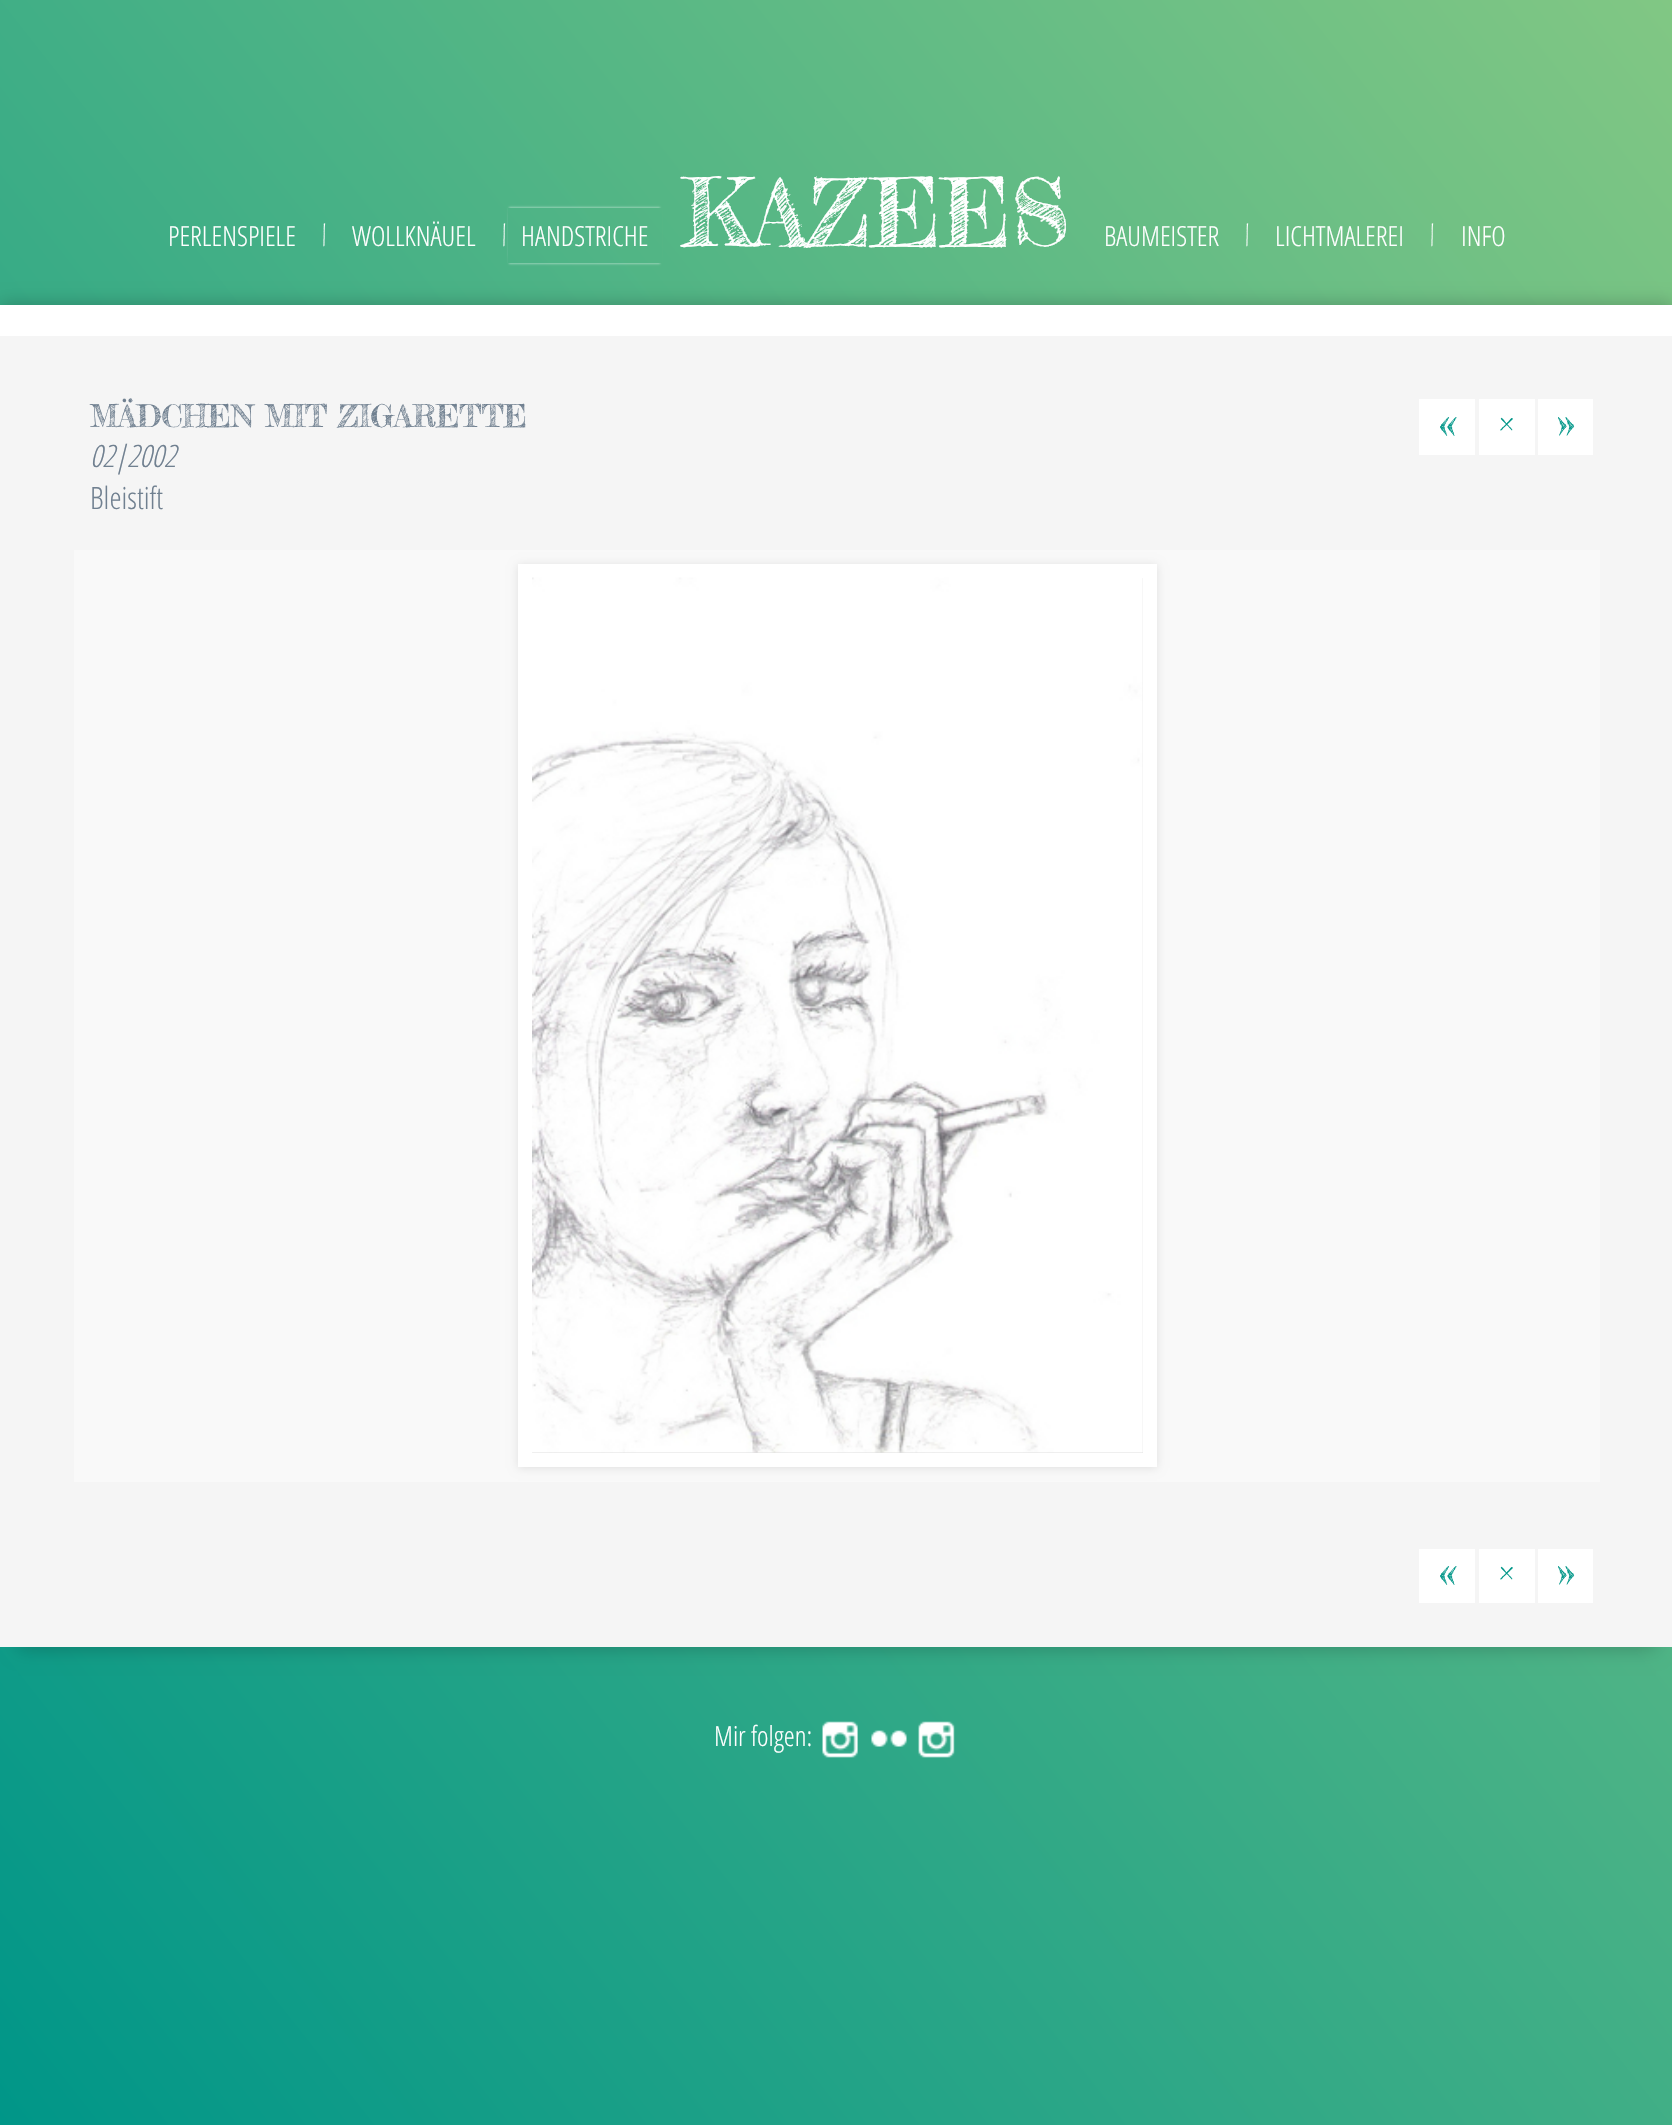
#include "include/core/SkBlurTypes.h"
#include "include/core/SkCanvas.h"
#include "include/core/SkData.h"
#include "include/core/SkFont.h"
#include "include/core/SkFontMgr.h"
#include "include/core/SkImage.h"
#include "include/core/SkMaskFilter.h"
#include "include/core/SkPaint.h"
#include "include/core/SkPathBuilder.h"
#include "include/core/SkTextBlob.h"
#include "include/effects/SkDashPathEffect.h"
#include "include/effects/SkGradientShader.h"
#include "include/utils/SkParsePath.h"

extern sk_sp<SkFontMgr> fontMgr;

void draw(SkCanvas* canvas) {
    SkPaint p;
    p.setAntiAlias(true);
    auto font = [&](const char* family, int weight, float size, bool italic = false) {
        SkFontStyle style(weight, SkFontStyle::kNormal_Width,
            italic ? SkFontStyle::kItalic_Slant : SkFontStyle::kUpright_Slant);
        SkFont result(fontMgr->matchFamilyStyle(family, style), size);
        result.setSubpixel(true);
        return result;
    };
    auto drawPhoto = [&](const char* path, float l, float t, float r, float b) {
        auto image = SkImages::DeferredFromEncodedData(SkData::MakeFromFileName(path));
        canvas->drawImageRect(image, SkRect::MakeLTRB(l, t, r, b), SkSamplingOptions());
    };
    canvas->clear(0xFFFFFFFF);
    {
        const SkColor colors[] = {0xFF009688, 0xFF81C784};
        const float stops[] = {0, 1};
        const SkPoint ends[] = {{-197, 1876}, {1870, 250}};
        p.setShader(SkGradientShader::MakeLinear(ends, colors, stops, 2, SkTileMode::kClamp));
        p.setAlpha(255);
    }
    canvas->drawRect(SkRect::MakeLTRB(0, 0, 1672, 2125), p);
    auto font1 = font("Open Sans Condensed", 300, 27.75f);
    p.setShader(nullptr);
    p.setColor(0xFFFFFFFF);
    canvas->drawString("PERLENSPIELE", 168, 246, font1, p);
    auto font2 = font("Fredericka the Great", 400, 30.75f);
    canvas->drawString("|", 321, 246, font2, p);
    canvas->drawString("WOLLKNÄUEL", 352, 246, font1, p);
    canvas->drawString("|", 501, 246, font2, p);
    canvas->save();
    canvas->clipPath(SkPathBuilder(SkPathFillType::kEvenOdd).moveTo(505, 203).lineTo(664, 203).lineTo(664, 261).lineTo(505, 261).close().moveTo(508, 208).lineTo(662, 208).lineTo(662, 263).lineTo(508, 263).close().detach(), true);
    p.setColor(0x66FFFFFF);
    p.setMaskFilter(SkMaskFilter::MakeBlur(kNormal_SkBlurStyle, 1));
    canvas->drawRect(SkRect::MakeLTRB(509, 207, 660, 257), p);
    p.setMaskFilter(nullptr);
    canvas->restore();
    canvas->save();
    canvas->clipPath(SkPathBuilder(SkPathFillType::kEvenOdd).moveTo(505, 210).lineTo(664, 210).lineTo(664, 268).lineTo(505, 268).close().moveTo(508, 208).lineTo(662, 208).lineTo(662, 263).lineTo(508, 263).close().detach(), true);
    p.setMaskFilter(SkMaskFilter::MakeBlur(kNormal_SkBlurStyle, 1));
    canvas->drawRect(SkRect::MakeLTRB(509, 214, 660, 264), p);
    p.setMaskFilter(nullptr);
    canvas->restore();
    p.setColor(0xFFFFFFFF);
    canvas->drawString("HANDSTRICHE", 521, 246, font1, p);
    auto font3 = font("Fredericka the Great", 400, 92.5f);
    canvas->drawString("KAZEES", 682, 246, font3, p);
    canvas->drawString("BAUMEISTER", 1104, 246, font1, p);
    canvas->drawString("|", 1244, 246, font2, p);
    canvas->drawString("LICHTMALEREI", 1275, 246, font1, p);
    canvas->drawString("|", 1429, 246, font2, p);
    canvas->drawString("INFO", 1461, 246, font1, p);
    p.setColor(0x33000000);
    p.setMaskFilter(SkMaskFilter::MakeBlur(kNormal_SkBlurStyle, 9));
    canvas->drawRect(SkRect::MakeLTRB(0, 303, 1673, 334), p);
    p.setMaskFilter(nullptr);
    p.setColor(0xFFFFFFFF);
    canvas->drawRect(SkRect::MakeLTRB(0, 305, 1672, 336), p);
    p.setColor(0x33000000);
    p.setMaskFilter(SkMaskFilter::MakeBlur(kNormal_SkBlurStyle, 9));
    canvas->drawRect(SkRect::MakeLTRB(18, 373, 1656, 1649), p);
    p.setMaskFilter(nullptr);
    p.setColor(0xFFF5F5F5);
    canvas->drawRect(SkRect::MakeLTRB(0, 336, 1672, 1647), p);
    p.setColor(0xFF708090);
    canvas->drawString("MÄDCHEN MIT ZIGARETTE", 90, 427, font2, p);
    auto font4 = font("Open Sans Condensed", 300, 30.75f, true);
    canvas->drawString("02|2002", 90, 467, font4, p);
    auto font5 = font("Open Sans Condensed", 300, 30.75f);
    canvas->drawString("Bleistift", 90, 509, font5, p);
    p.setColor(0xFFFFFFFF);
    canvas->drawRect(SkRect::MakeLTRB(1419, 399, 1475, 455), p);
    auto font6 = font("Fredericka the Great", 400, 37);
    p.setColor(0xFF009688);
    canvas->drawString("«", 1440, 436, font6, p);
    p.setColor(0xFFFFFFFF);
    canvas->drawRect(SkRect::MakeLTRB(1479, 399, 1535, 455), p);
    p.setColor(0xFF009688);
    canvas->drawString("×", 1500, 436, font6, p);
    p.setColor(0xFFFFFFFF);
    canvas->drawRect(SkRect::MakeLTRB(1538, 399, 1593, 455), p);
    p.setColor(0xFF009688);
    canvas->drawString("»", 1558, 436, font6, p);
    p.setColor(0xFFF9F9F9);
    canvas->drawRect(SkRect::MakeLTRB(74, 550, 1600, 1482), p);
    p.setColor(0x1A000000);
    p.setMaskFilter(SkMaskFilter::MakeBlur(kNormal_SkBlurStyle, 4.5f));
    canvas->drawRect(SkRect::MakeLTRB(518, 565, 1157, 1468), p);
    p.setMaskFilter(nullptr);
    p.setStyle(SkPaint::kStroke_Style);
    p.setStrokeWidth(14);
    p.setColor(0xFFFFFFFF);
    canvas->drawRect(SkRect::MakeLTRB(525, 571, 1150, 1460), p);
    drawPhoto("media/1.png", 532, 577, 1143, 1453);
    p.setStyle(SkPaint::kFill_Style);
    canvas->drawRect(SkRect::MakeLTRB(1419, 1549, 1475, 1603), p);
    p.setColor(0xFF009688);
    canvas->drawString("«", 1440, 1585, font6, p);
    p.setColor(0xFFFFFFFF);
    canvas->drawRect(SkRect::MakeLTRB(1479, 1549, 1535, 1603), p);
    p.setColor(0xFF009688);
    canvas->drawString("×", 1500, 1585, font6, p);
    p.setColor(0xFFFFFFFF);
    canvas->drawRect(SkRect::MakeLTRB(1538, 1549, 1593, 1603), p);
    p.setColor(0xFF009688);
    canvas->drawString("»", 1558, 1585, font6, p);
    p.setColor(0xFFFFFFFF);
    canvas->drawString("Mir folgen:", 714, 1746, font1, p);
    drawPhoto("media/2.png", 822, 1721, 858, 1758);
    drawPhoto("media/3.png", 871, 1730, 907, 1747);
    drawPhoto("media/4.png", 918, 1721, 955, 1758);
}
